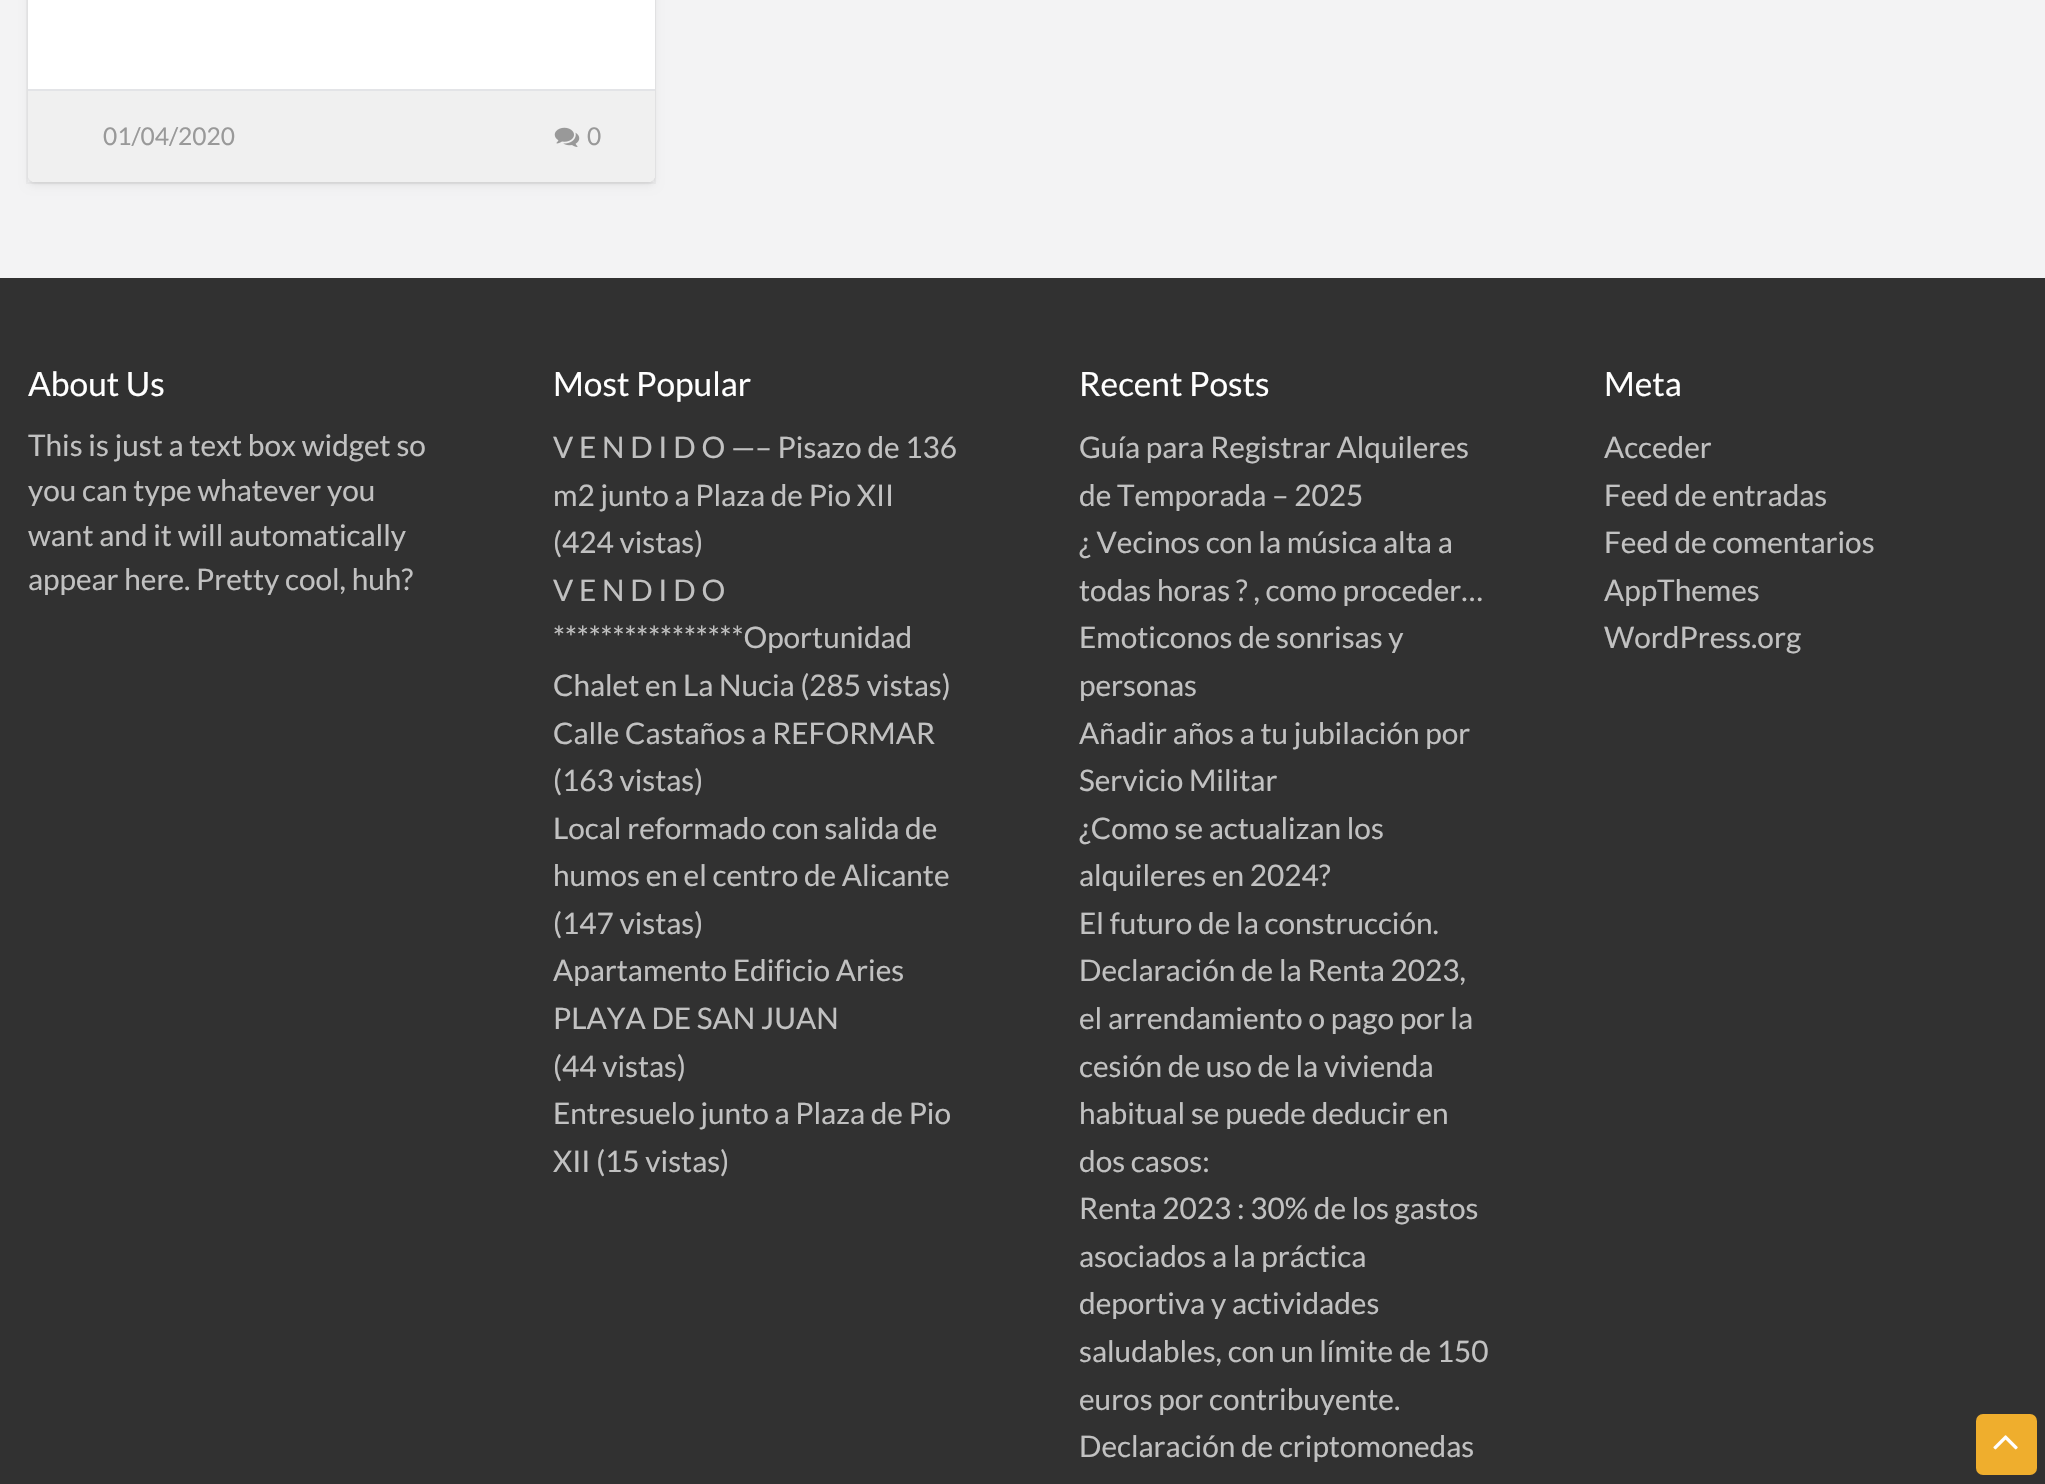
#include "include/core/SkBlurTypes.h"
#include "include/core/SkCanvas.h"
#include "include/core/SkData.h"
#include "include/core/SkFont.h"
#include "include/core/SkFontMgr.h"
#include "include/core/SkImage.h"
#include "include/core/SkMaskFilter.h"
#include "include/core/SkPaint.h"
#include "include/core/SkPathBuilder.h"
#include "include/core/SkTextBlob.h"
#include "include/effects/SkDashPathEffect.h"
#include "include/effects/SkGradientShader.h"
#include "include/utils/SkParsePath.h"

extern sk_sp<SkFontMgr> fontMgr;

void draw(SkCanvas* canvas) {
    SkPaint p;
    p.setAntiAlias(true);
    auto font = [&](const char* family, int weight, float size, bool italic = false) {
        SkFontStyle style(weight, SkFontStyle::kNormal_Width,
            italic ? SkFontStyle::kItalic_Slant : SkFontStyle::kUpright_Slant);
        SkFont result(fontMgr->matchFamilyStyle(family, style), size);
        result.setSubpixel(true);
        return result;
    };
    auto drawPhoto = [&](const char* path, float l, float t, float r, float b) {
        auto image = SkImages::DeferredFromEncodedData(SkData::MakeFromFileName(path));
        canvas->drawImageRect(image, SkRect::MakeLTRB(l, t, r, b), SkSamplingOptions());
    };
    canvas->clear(0xFFF3F3F4);
    p.setColor(0x0D000000);
    p.setMaskFilter(SkMaskFilter::MakeBlur(kNormal_SkBlurStyle, 4.5f));
    canvas->drawRoundRect(SkRect::MakeLTRB(28, -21, 655, 186), 7, 7, p);
    p.setMaskFilter(nullptr);
    p.setMaskFilter(SkMaskFilter::MakeBlur(kNormal_SkBlurStyle, 1));
    canvas->drawRoundRect(SkRect::MakeLTRB(28, -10, 655, 184), 7, 7, p);
    p.setMaskFilter(nullptr);
    p.setStyle(SkPaint::kStroke_Style);
    p.setStrokeWidth(2);
    p.setColor(0x08000000);
    canvas->drawRect(SkRect::MakeLTRB(27, -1, 655, 183), p);
    p.setStyle(SkPaint::kFill_Style);
    p.setColor(0xFFFFFFFF);
    canvas->drawRoundRect(SkRect::MakeLTRB(28, -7, 655, 182), 7, 7, p);
    p.setColor(0xFFF0F0F0);
    canvas->drawPath(SkPathBuilder().moveTo(28, 89).lineTo(655, 89).lineTo(655, 175).cubicTo(655, 179, 652, 182, 648, 182).lineTo(35, 182).cubicTo(31, 182, 28, 179, 28, 175).close().detach(), p);
    p.setColor(0xFFE3E4E7);
    canvas->drawRect(SkRect::MakeLTRB(28, 89, 655, 91), p);
    auto font1 = font("Lato", 400, 24.5f);
    p.setColor(0xFF999999);
    canvas->drawString("01/04/2020", 103, 145, font1, p);
    drawPhoto("media/1.png", 554, 127, 580, 147);
    canvas->drawString("0", 587, 145, font1, p);
    p.setColor(0xFF313131);
    canvas->drawRect(SkRect::MakeLTRB(0, 278, 2045, 1484), p);
    auto font2 = font("Lato", 400, 33.5f);
    p.setColor(0xFFFFFFFF);
    canvas->drawString("About Us", 28, 396, font2, p);
    auto font3 = font("Lato", 400, 29.75f);
    p.setColor(0xFFC1C1C1);
    {
        const struct { const char* s; float x, y; } items[] = {
            {"This is just a text box widget so", 28, 456},
            {"you can type whatever you", 28, 501},
            {"want and it will automatically", 28, 546},
            {"appear here. Pretty cool, huh?", 28, 590},
        };
        for (auto [s, x, y] : items) {
            canvas->drawString(s, x, y, font3, p);
        }
    }
    p.setColor(0xFFFFFFFF);
    canvas->drawString("Most Popular", 553, 396, font2, p);
    p.setColor(0xFFC1C1C1);
    {
        const struct { const char* s; float x, y; } items[] = {
            {"V E N D I D O —– Pisazo de 136", 553, 458},
            {"m2 junto a Plaza de Pio XII", 553, 506},
            {"(424 vistas)", 553, 553},
            {"V E N D I D O", 553, 601},
            {"****************Oportunidad", 553, 648},
            {"Chalet en La Nucia (285 vistas)", 553, 696},
            {"Calle Castaños a REFORMAR", 553, 744},
            {"(163 vistas)", 553, 791},
            {"Local reformado con salida de", 553, 839},
            {"humos en el centro de Alicante", 553, 886},
            {"(147 vistas)", 553, 934},
            {"Apartamento Edificio Aries", 553, 981},
            {"PLAYA DE SAN JUAN", 553, 1029},
            {"(44 vistas)", 553, 1077},
            {"Entresuelo junto a Plaza de Pio", 553, 1124},
            {"XII (15 vistas)", 553, 1172},
        };
        for (auto [s, x, y] : items) {
            canvas->drawString(s, x, y, font3, p);
        }
    }
    p.setColor(0xFFFFFFFF);
    canvas->drawString("Recent Posts", 1079, 396, font2, p);
    p.setColor(0xFFC1C1C1);
    {
        const struct { const char* s; float x, y; } items[] = {
            {"Guía para Registrar Alquileres", 1079, 458},
            {"de Temporada – 2025", 1079, 506},
            {"¿ Vecinos con la música alta a", 1079, 553},
            {"todas horas ? , como proceder…", 1079, 601},
            {"Emoticonos de sonrisas y", 1079, 648},
            {"personas", 1079, 696},
            {"Añadir años a tu jubilación por", 1079, 744},
            {"Servicio Militar", 1079, 791},
            {"¿Como se actualizan los", 1079, 839},
            {"alquileres en 2024?", 1079, 886},
            {"El futuro de la construcción.", 1079, 934},
            {"Declaración de la Renta 2023,", 1079, 981},
            {"el arrendamiento o pago por la", 1079, 1029},
            {"cesión de uso de la vivienda", 1079, 1077},
            {"habitual se puede deducir en", 1079, 1124},
            {"dos casos:", 1079, 1172},
            {"Renta 2023 : 30% de los gastos", 1079, 1219},
            {"asociados a la práctica", 1079, 1267},
            {"deportiva y actividades", 1079, 1314},
            {"saludables, con un límite de 150", 1079, 1362},
            {"euros por contribuyente.", 1079, 1410},
            {"Declaración de criptomonedas", 1079, 1457},
        };
        for (auto [s, x, y] : items) {
            canvas->drawString(s, x, y, font3, p);
        }
    }
    p.setColor(0xFFFFFFFF);
    canvas->drawString("Meta", 1604, 396, font2, p);
    p.setColor(0xFFC1C1C1);
    {
        const struct { const char* s; float x, y; } items[] = {
            {"Acceder", 1604, 458},
            {"Feed de entradas", 1604, 506},
            {"Feed de comentarios", 1604, 553},
            {"AppThemes", 1604, 601},
            {"WordPress.org", 1604, 648},
        };
        for (auto [s, x, y] : items) {
            canvas->drawString(s, x, y, font3, p);
        }
    }
    p.setColor(0xFFEFAE2D);
    canvas->drawRoundRect(SkRect::MakeLTRB(1976, 1414, 2037, 1475), 7, 7, p);
    drawPhoto("media/2.png", 1993, 1435, 2018, 1450);
}
